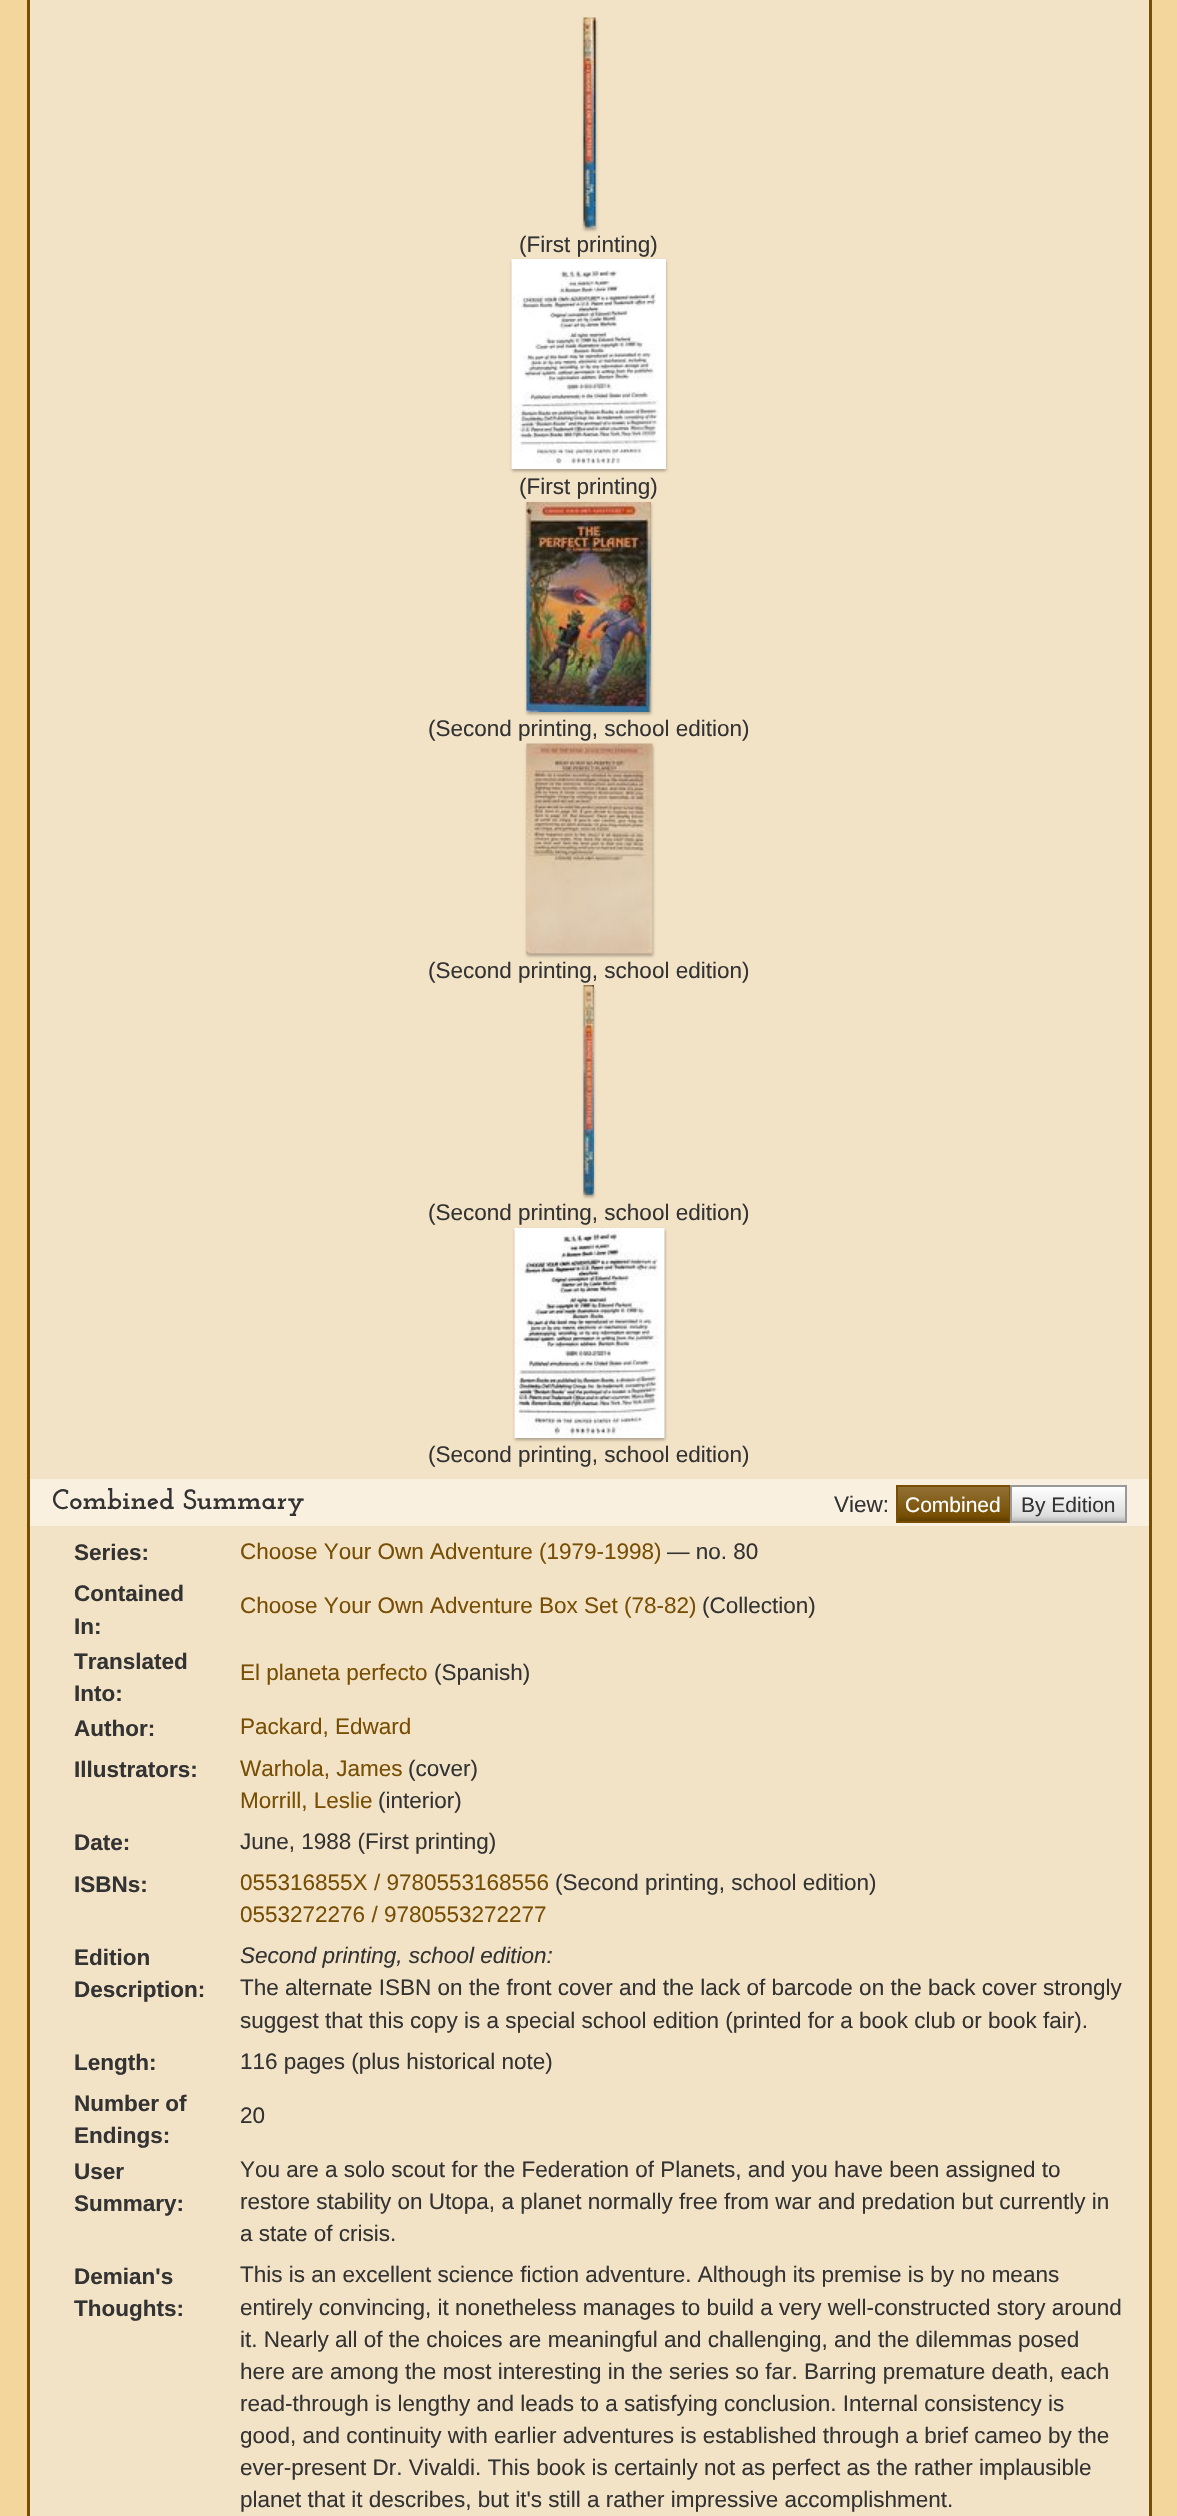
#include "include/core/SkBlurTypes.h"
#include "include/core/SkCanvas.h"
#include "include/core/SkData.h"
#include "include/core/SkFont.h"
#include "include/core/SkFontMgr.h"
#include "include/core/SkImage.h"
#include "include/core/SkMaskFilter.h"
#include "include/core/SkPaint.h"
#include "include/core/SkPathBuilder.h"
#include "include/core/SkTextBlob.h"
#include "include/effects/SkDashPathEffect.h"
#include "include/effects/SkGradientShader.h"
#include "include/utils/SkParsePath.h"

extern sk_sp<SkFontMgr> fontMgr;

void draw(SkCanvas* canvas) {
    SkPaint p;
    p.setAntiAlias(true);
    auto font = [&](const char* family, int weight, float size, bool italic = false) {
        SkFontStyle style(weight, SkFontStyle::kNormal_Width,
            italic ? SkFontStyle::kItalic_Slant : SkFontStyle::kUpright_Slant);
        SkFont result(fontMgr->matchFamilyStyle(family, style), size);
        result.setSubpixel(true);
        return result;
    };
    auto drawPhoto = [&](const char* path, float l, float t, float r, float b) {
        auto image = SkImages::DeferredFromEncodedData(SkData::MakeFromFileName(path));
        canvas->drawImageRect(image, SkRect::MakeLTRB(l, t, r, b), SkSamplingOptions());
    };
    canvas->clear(0xFFF3D69C);
    {
        const struct { float l, t, r, b; SkColor color; } items[] = {
            {30, 0, 1149, 2516, 0xFFF3E3C6},
            {1149, 0, 1152, 2516, 0xFF774E03},
            {27, 0, 30, 2516, 0xFF774E03},
        };
        for (auto [l, t, r, b, color] : items) {
            p.setColor(color);
            canvas->drawRect(SkRect::MakeLTRB(l, t, r, b), p);
        }
    }
    p.setColor(0x4D000000);
    p.setMaskFilter(SkMaskFilter::MakeBlur(kNormal_SkBlurStyle, 1.5f));
    canvas->drawRect(SkRect::MakeLTRB(584, 20, 596, 230), p);
    p.setMaskFilter(nullptr);
    drawPhoto("media/1.png", 583, 17, 596, 228);
    auto font1 = font("Liberation Sans", 400, 22.5f);
    p.setColor(0xFF333333);
    canvas->drawString("(First printing)", 519, 252, font1, p);
    p.setColor(0x4D000000);
    p.setMaskFilter(SkMaskFilter::MakeBlur(kNormal_SkBlurStyle, 1.5f));
    canvas->drawRect(SkRect::MakeLTRB(512, 261, 666, 471), p);
    p.setMaskFilter(nullptr);
    drawPhoto("media/2.png", 511, 259, 666, 469);
    p.setColor(0xFF333333);
    canvas->drawString("(First printing)", 519, 494, font1, p);
    p.setColor(0x4D000000);
    p.setMaskFilter(SkMaskFilter::MakeBlur(kNormal_SkBlurStyle, 1.5f));
    canvas->drawRect(SkRect::MakeLTRB(527, 504, 651, 714), p);
    p.setMaskFilter(nullptr);
    drawPhoto("media/3.png", 526, 502, 651, 712);
    p.setColor(0xFF333333);
    canvas->drawString("(Second printing, school edition)", 428, 736, font1, p);
    p.setColor(0x4D000000);
    p.setMaskFilter(SkMaskFilter::MakeBlur(kNormal_SkBlurStyle, 1.5f));
    canvas->drawRect(SkRect::MakeLTRB(527, 746, 653, 956), p);
    p.setMaskFilter(nullptr);
    drawPhoto("media/4.png", 526, 743, 653, 954);
    p.setColor(0xFF333333);
    canvas->drawString("(Second printing, school edition)", 428, 978, font1, p);
    p.setColor(0x4D000000);
    p.setMaskFilter(SkMaskFilter::MakeBlur(kNormal_SkBlurStyle, 1.5f));
    canvas->drawRect(SkRect::MakeLTRB(584, 987, 594, 1197), p);
    p.setMaskFilter(nullptr);
    drawPhoto("media/5.png", 583, 985, 594, 1195);
    p.setColor(0xFF333333);
    canvas->drawString("(Second printing, school edition)", 428, 1220, font1, p);
    p.setColor(0x4D000000);
    p.setMaskFilter(SkMaskFilter::MakeBlur(kNormal_SkBlurStyle, 1.5f));
    canvas->drawRect(SkRect::MakeLTRB(515, 1230, 665, 1440), p);
    p.setMaskFilter(nullptr);
    drawPhoto("media/6.png", 514, 1228, 665, 1438);
    p.setColor(0xFF333333);
    canvas->drawString("(Second printing, school edition)", 428, 1462, font1, p);
    p.setColor(0xFFF9F0E0);
    canvas->drawRect(SkRect::MakeLTRB(30, 1479, 1149, 1526), p);
    auto font2 = font("Josefin Slab", 700, 28.1f);
    p.setColor(0xFF333333);
    canvas->drawString("Combined Summary", 52, 1509, font2, p);
    canvas->drawString("View:", 834, 1512, font1, p);
    {
        const SkColor colors[] = {0xFF927135, 0xFF774E03, 0xFF5F3E02};
        const float stops[] = {0, 0.85f, 1};
        const SkPoint ends[] = {{953, 1487}, {953, 1521}};
        p.setShader(SkGradientShader::MakeLinear(ends, colors, stops, 3, SkTileMode::kClamp));
        p.setAlpha(255);
    }
    canvas->drawRect(SkRect::MakeLTRB(898, 1487, 1009, 1521), p);
    p.setStyle(SkPaint::kStroke_Style);
    p.setStrokeWidth(2);
    p.setShader(nullptr);
    p.setColor(0xFF774E03);
    canvas->drawRect(SkRect::MakeLTRB(897, 1486, 1010, 1522), p);
    auto font3 = font("Liberation Sans", 400, 21);
    p.setStyle(SkPaint::kFill_Style);
    p.setColor(0xFFFFFFFF);
    canvas->drawString("Combined", 905, 1512, font3, p);
    {
        const SkColor colors[] = {0xFFFFFFFF, 0xFFDDDDDD, 0xFFBBBBBB};
        const float stops[] = {0, 0.85f, 1};
        const SkPoint ends[] = {{1068, 1487}, {1068, 1521}};
        p.setShader(SkGradientShader::MakeLinear(ends, colors, stops, 3, SkTileMode::kClamp));
        p.setAlpha(255);
    }
    canvas->drawRect(SkRect::MakeLTRB(1012, 1487, 1125, 1521), p);
    p.setStyle(SkPaint::kStroke_Style);
    p.setShader(nullptr);
    p.setColor(0xFF999999);
    canvas->drawRect(SkRect::MakeLTRB(1011, 1486, 1126, 1522), p);
    p.setStyle(SkPaint::kFill_Style);
    p.setColor(0xFF333333);
    canvas->drawString("By Edition", 1021, 1512, font3, p);
    auto font4 = font("Liberation Sans", 700, 22.5f);
    canvas->drawString("Series:", 74, 1560, font4, p);
    p.setColor(0xFF774E03);
    canvas->drawString("Choose Your Own Adventure (1979-1998)", 240, 1559, font1, p);
    p.setColor(0xFF333333);
    canvas->drawString("— no. 80", 667, 1559, font1, p);
    canvas->drawString("Contained", 74, 1601, font4, p);
    canvas->drawString("In:", 74, 1634, font4, p);
    p.setColor(0xFF774E03);
    canvas->drawString("Choose Your Own Adventure Box Set (78-82)", 240, 1613, font1, p);
    p.setColor(0xFF333333);
    canvas->drawString("(Collection)", 702, 1613, font1, p);
    canvas->drawString("Translated", 74, 1669, font4, p);
    canvas->drawString("Into:", 74, 1701, font4, p);
    p.setColor(0xFF774E03);
    canvas->drawString("El planeta perfecto", 240, 1680, font1, p);
    p.setColor(0xFF333333);
    canvas->drawString("(Spanish)", 434, 1680, font1, p);
    canvas->drawString("Author:", 74, 1736, font4, p);
    p.setColor(0xFF774E03);
    canvas->drawString("Packard, Edward", 240, 1734, font1, p);
    p.setColor(0xFF333333);
    canvas->drawString("Illustrators:", 74, 1777, font4, p);
    p.setColor(0xFF774E03);
    canvas->drawString("Warhola, James", 240, 1776, font1, p);
    p.setColor(0xFF333333);
    canvas->drawString("(cover)", 408, 1776, font1, p);
    p.setColor(0xFF774E03);
    canvas->drawString("Morrill, Leslie", 240, 1808, font1, p);
    p.setColor(0xFF333333);
    canvas->drawString("(interior)", 378, 1808, font1, p);
    canvas->drawString("Date:", 74, 1850, font4, p);
    canvas->drawString("June, 1988 (First printing)", 240, 1849, font1, p);
    canvas->drawString("ISBNs:", 74, 1892, font4, p);
    p.setColor(0xFF774E03);
    canvas->drawString("055316855X / 9780553168556", 240, 1890, font1, p);
    p.setColor(0xFF333333);
    canvas->drawString("(Second printing, school edition)", 555, 1890, font1, p);
    p.setColor(0xFF774E03);
    canvas->drawString("0553272276 / 9780553272277", 240, 1922, font1, p);
    p.setColor(0xFF333333);
    canvas->drawString("Edition", 74, 1965, font4, p);
    canvas->drawString("Description:", 74, 1997, font4, p);
    auto font5 = font("Liberation Sans", 400, 22.5f, true);
    canvas->drawString("Second printing, school edition:", 240, 1963, font5, p);
    canvas->drawString("The alternate ISBN on the front cover and the lack of barcode on the back cover strongly", 240, 1995, font1, p);
    canvas->drawString("suggest that this copy is a special school edition (printed for a book club or book fair).", 240, 2028, font1, p);
    canvas->drawString("Length:", 74, 2070, font4, p);
    canvas->drawString("116 pages (plus historical note)", 240, 2069, font1, p);
    canvas->drawString("Number of", 74, 2111, font4, p);
    canvas->drawString("Endings:", 74, 2143, font4, p);
    canvas->drawString("20", 240, 2123, font1, p);
    canvas->drawString("User", 74, 2179, font4, p);
    canvas->drawString("Summary:", 74, 2211, font4, p);
    {
        const struct { const char* s; float x, y; } items[] = {
            {"You are a solo scout for the Federation of Planets, and you have been assigned to", 240, 2177},
            {"restore stability on Utopa, a planet normally free from war and predation but currently in", 240, 2209},
            {"a state of crisis.", 240, 2241},
        };
        for (auto [s, x, y] : items) {
            canvas->drawString(s, x, y, font1, p);
        }
    }
    canvas->drawString("Demian's", 74, 2284, font4, p);
    canvas->drawString("Thoughts:", 74, 2316, font4, p);
    {
        const struct { const char* s; float x, y; } items[] = {
            {"This is an excellent science fiction adventure. Although its premise is by no means", 240, 2282},
            {"entirely convincing, it nonetheless manages to build a very well-constructed story around", 240, 2315},
            {"it. Nearly all of the choices are meaningful and challenging, and the dilemmas posed", 240, 2347},
            {"here are among the most interesting in the series so far. Barring premature death, each", 240, 2379},
            {"read-through is lengthy and leads to a satisfying conclusion. Internal consistency is", 240, 2411},
            {"good, and continuity with earlier adventures is established through a brief cameo by the", 240, 2443},
            {"ever-present Dr. Vivaldi. This book is certainly not as perfect as the rather implausible", 240, 2475},
            {"planet that it describes, but it's still a rather impressive accomplishment.", 240, 2507},
        };
        for (auto [s, x, y] : items) {
            canvas->drawString(s, x, y, font1, p);
        }
    }
}
